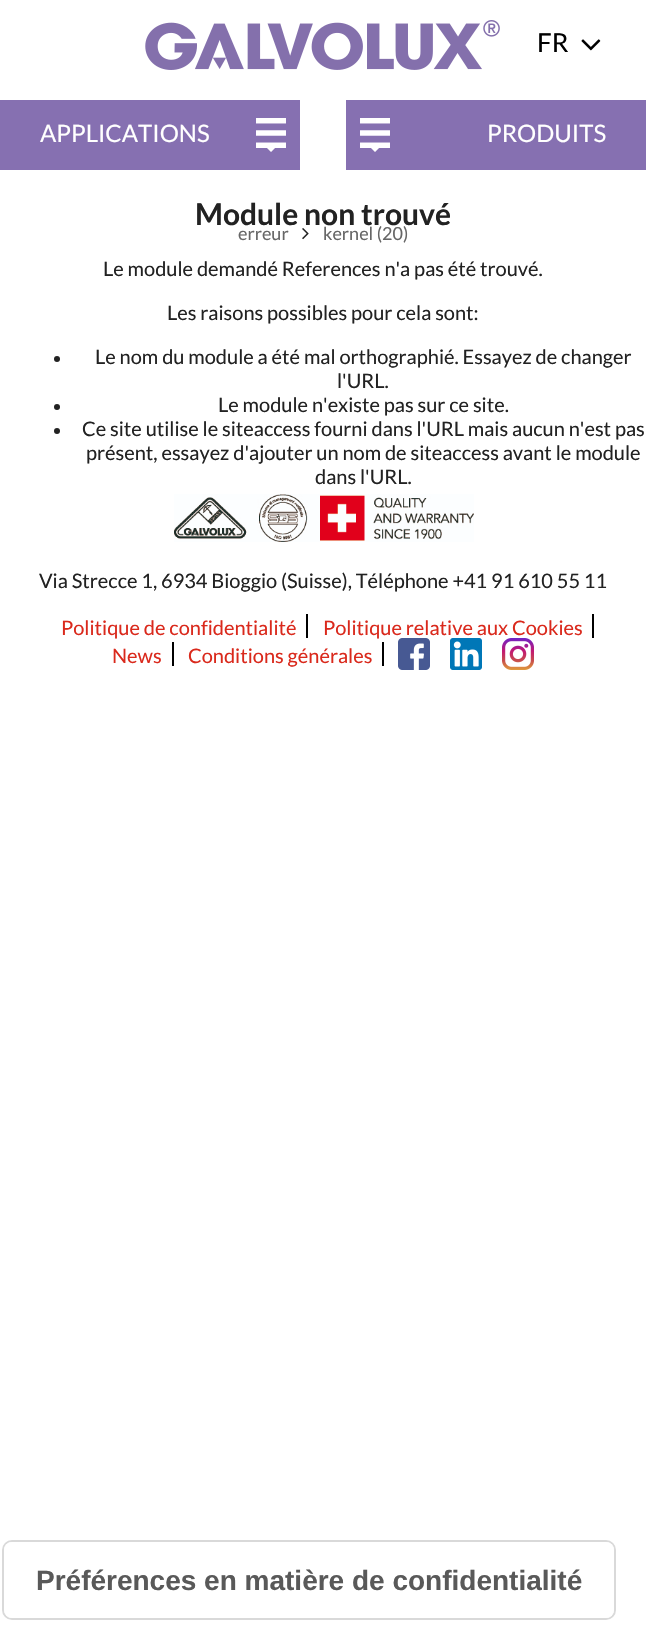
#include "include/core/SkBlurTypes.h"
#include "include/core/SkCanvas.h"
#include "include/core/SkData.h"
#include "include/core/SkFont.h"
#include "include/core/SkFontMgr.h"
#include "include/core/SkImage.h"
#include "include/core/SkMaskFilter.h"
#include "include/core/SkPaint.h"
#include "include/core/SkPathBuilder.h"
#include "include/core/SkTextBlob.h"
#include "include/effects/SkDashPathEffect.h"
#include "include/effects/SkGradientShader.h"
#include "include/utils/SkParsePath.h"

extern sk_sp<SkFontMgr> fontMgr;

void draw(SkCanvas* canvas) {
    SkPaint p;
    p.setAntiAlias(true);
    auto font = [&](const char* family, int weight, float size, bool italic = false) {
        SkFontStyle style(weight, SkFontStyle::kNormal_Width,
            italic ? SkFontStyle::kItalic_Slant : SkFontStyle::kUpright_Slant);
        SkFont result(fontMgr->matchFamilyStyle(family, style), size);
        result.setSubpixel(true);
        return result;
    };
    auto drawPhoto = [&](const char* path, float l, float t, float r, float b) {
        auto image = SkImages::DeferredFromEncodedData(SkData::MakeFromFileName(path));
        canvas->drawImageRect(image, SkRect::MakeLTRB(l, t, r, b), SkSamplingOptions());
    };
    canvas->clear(0xFFFFFFFF);
    auto font1 = font("Lato", 400, 26);
    p.setColor(0xFF000000);
    canvas->drawString("FR", 537, 52, font1, p);
    drawPhoto("media/1.png", 581, 39, 601, 51);
    drawPhoto("media/2.png", 145, 20, 500, 70);
    p.setColor(0xFF8670B1);
    canvas->drawRect(SkRect::MakeLTRB(0, 100, 300, 170), p);
    drawPhoto("media/3.png", 256, 118, 286, 152);
    auto font2 = font("Lato", 400, 24);
    p.setColor(0xFFFFFFFF);
    canvas->drawString("APPLICATIONS", 40, 142, font2, p);
    p.setColor(0xFF8670B1);
    canvas->drawRect(SkRect::MakeLTRB(346, 100, 646, 170), p);
    drawPhoto("media/3.png", 360, 118, 390, 152);
    p.setColor(0xFFFFFFFF);
    canvas->drawString("PRODUITS", 487, 142, font2, p);
    auto font3 = font("Lato", 700, 30);
    p.setColor(0xFF222222);
    canvas->drawString("Module non trouvé", 195, 225, font3, p);
    auto font4 = font("Lato", 400, 20);
    canvas->drawString("Le module demandé References n'a pas été trouvé.", 103, 276, font4, p);
    canvas->drawString("Les raisons possibles pour cela sont:", 167, 320, font4, p);
    canvas->drawCircle(57, 359, 3, p);
    canvas->drawString("Le nom du module a été mal orthographié. Essayez de changer", 95, 364, font4, p);
    canvas->drawString("l'URL.", 337, 388, font4, p);
    canvas->drawCircle(57, 407, 3, p);
    canvas->drawString("Le module n'existe pas sur ce site.", 218, 412, font4, p);
    canvas->drawCircle(57, 431, 3, p);
    {
        const struct { const char* s; float x, y; } items[] = {
            {"Ce site utilise le siteaccess fourni dans l'URL mais aucun n'est pas", 82, 436},
            {"présent, essayez d'ajouter un nom de siteaccess avant le module", 86, 460},
            {"dans l'URL.", 315, 484},
        };
        for (auto [s, x, y] : items) {
            canvas->drawString(s, x, y, font4, p);
        }
    }
    auto font5 = font("Lato", 400, 18);
    p.setColor(0xFF666666);
    canvas->drawString("erreur", 238, 240, font5, p);
    drawPhoto("media/4.png", 302, 228, 309, 240);
    canvas->drawString("kernel (20)", 323, 240, font5, p);
    drawPhoto("media/5.png", 174, 494, 474, 542);
    p.setColor(0xFF222222);
    canvas->drawString("Via Strecce 1, 6934 Bioggio (Suisse), Téléphone +41 91 610 55 11", 39, 588, font4, p);
    p.setColor(0xFF000000);
    canvas->drawRect(SkRect::MakeLTRB(306, 614, 308, 638), p);
    p.setColor(0xFFDA291C);
    canvas->drawString("Politique de confidentialité", 61, 635, font4, p);
    p.setColor(0xFF000000);
    canvas->drawRect(SkRect::MakeLTRB(592, 614, 594, 638), p);
    p.setColor(0xFFDA291C);
    canvas->drawString("Politique relative aux Cookies", 323, 635, font4, p);
    p.setColor(0xFF000000);
    canvas->drawRect(SkRect::MakeLTRB(172, 642, 174, 666), p);
    p.setColor(0xFFDA291C);
    canvas->drawString("News", 112, 663, font4, p);
    p.setColor(0xFF000000);
    canvas->drawRect(SkRect::MakeLTRB(382, 642, 384, 666), p);
    p.setColor(0xFFDA291C);
    canvas->drawString("Conditions générales", 188, 663, font4, p);
    drawPhoto("media/6.png", 398, 638, 430, 670);
    drawPhoto("media/7.png", 450, 638, 482, 670);
    drawPhoto("media/8.png", 502, 638, 534, 670);
    p.setStyle(SkPaint::kStroke_Style);
    p.setStrokeWidth(2);
    p.setColor(0xFFD9D9D9);
    canvas->drawRoundRect(SkRect::MakeLTRB(3, 1541, 615, 1619), 9, 9, p);
    p.setStyle(SkPaint::kFill_Style);
    p.setColor(0xFFFFFFFF);
    canvas->drawRoundRect(SkRect::MakeLTRB(4, 1542, 614, 1618), 8, 8, p);
    auto font6 = font("Liberation Sans", 700, 28);
    p.setColor(0xFF595959);
    canvas->drawString("Préférences en matière de confidentialité", 36, 1590, font6, p);
}
